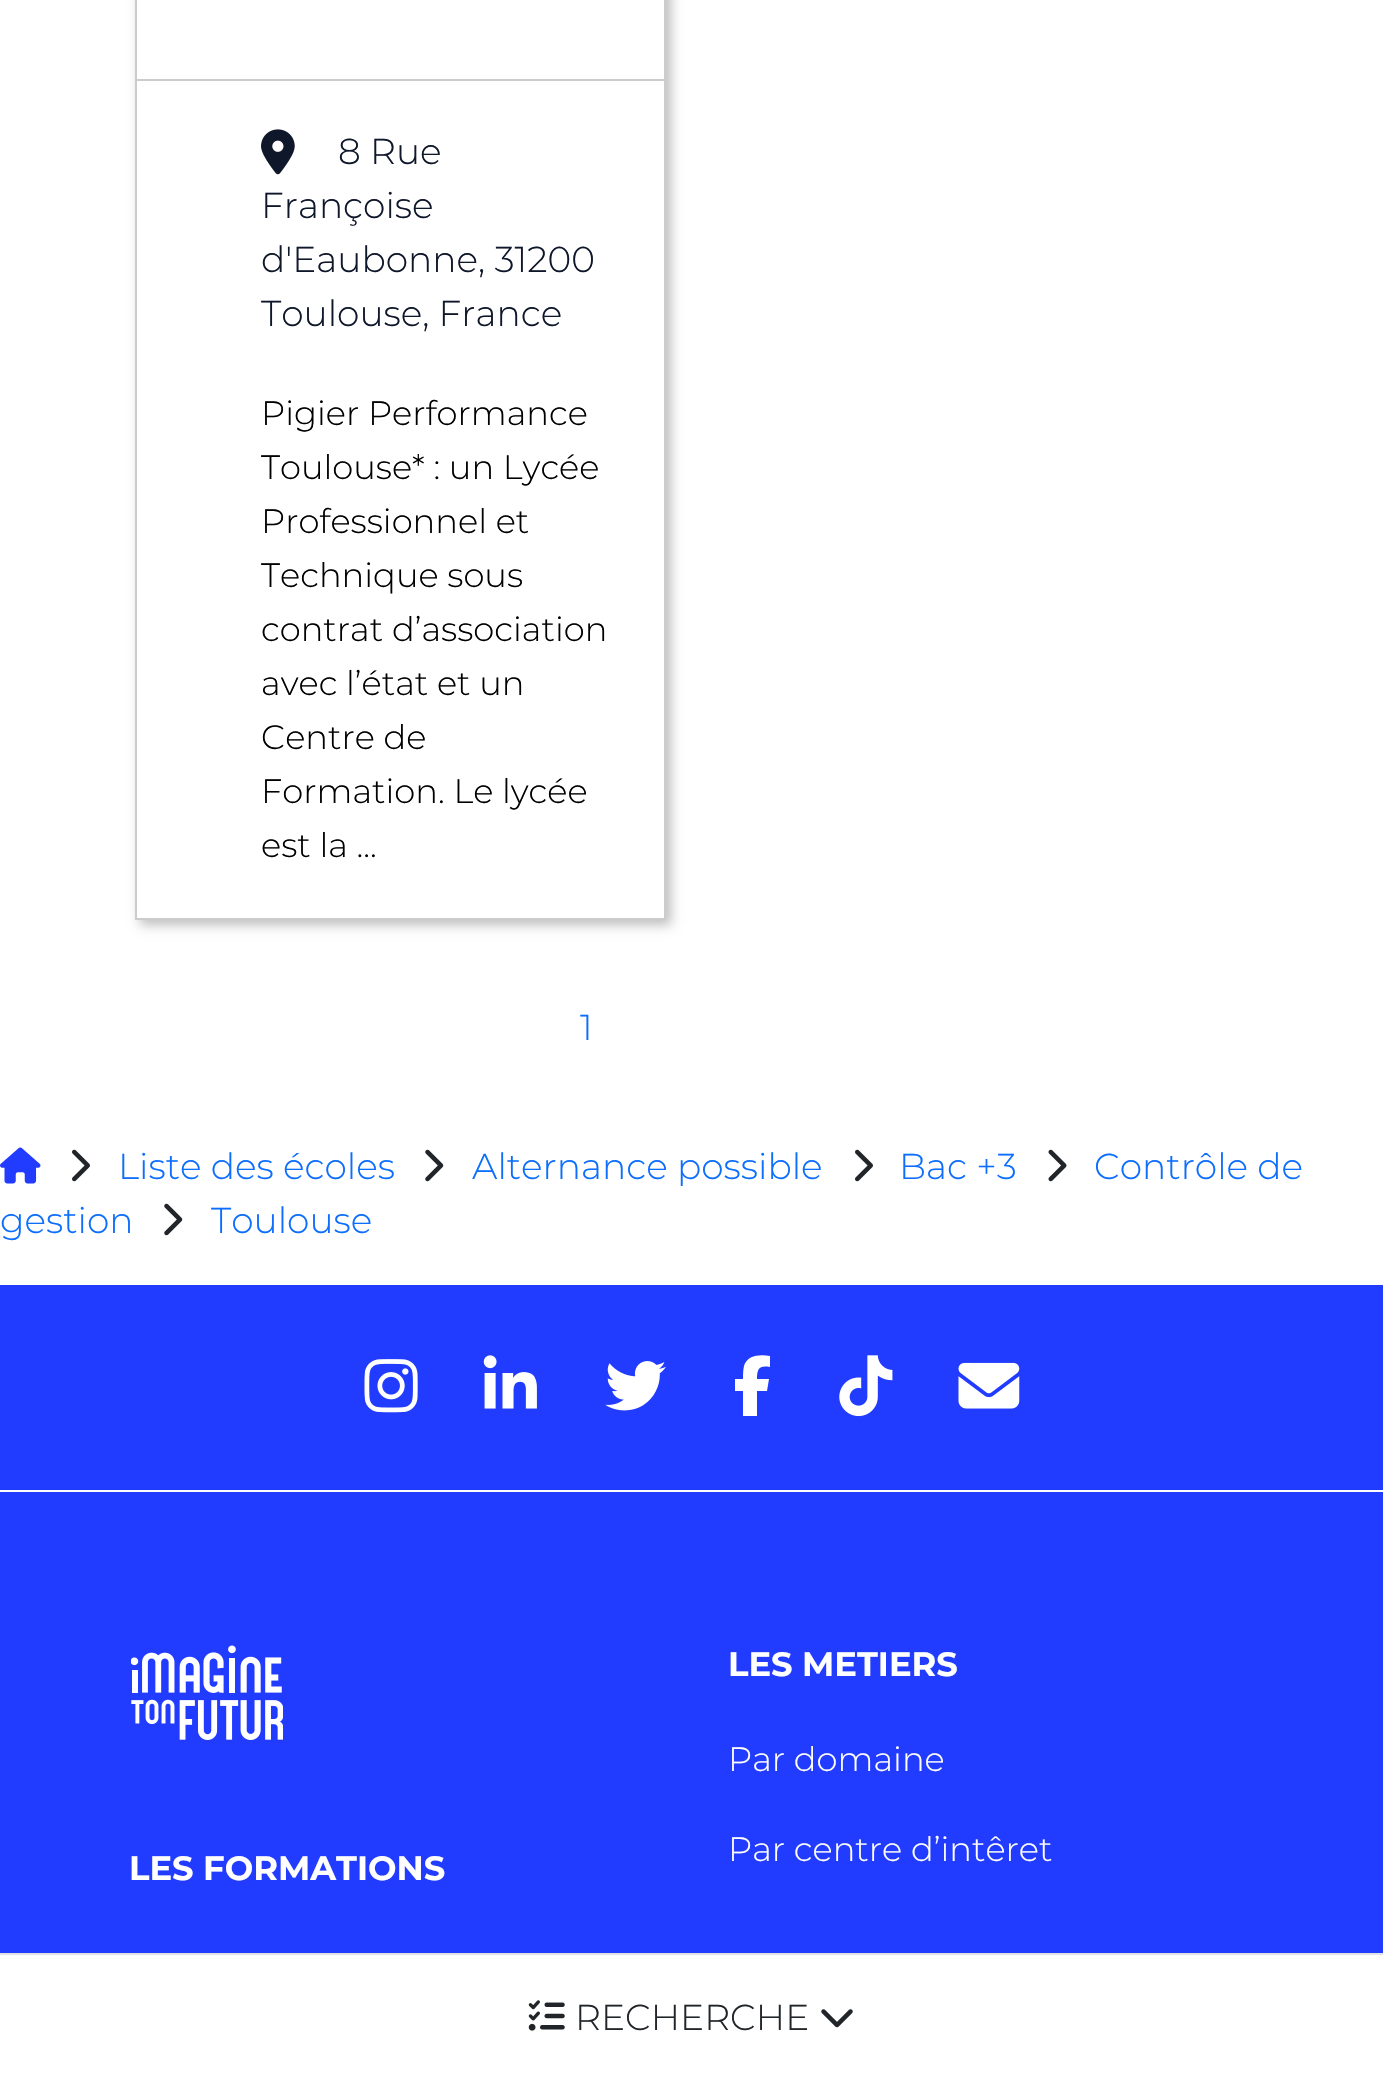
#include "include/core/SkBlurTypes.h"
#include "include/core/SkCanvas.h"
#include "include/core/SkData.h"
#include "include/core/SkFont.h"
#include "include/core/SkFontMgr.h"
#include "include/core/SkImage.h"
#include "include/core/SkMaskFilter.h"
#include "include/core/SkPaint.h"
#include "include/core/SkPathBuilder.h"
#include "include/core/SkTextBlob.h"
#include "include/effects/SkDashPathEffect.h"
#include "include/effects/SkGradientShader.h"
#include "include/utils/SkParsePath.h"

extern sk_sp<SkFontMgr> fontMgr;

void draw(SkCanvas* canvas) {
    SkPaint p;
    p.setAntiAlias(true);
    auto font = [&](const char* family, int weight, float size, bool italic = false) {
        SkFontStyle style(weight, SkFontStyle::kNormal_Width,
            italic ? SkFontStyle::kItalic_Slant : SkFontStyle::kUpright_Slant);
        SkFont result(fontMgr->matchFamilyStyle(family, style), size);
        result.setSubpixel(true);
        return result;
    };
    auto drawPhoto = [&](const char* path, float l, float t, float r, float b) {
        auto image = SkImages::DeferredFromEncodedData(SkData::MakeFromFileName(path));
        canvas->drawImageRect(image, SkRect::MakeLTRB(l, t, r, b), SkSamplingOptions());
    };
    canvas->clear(0xFFFFFFFF);
    canvas->save();
    canvas->clipPath(SkPathBuilder(SkPathFillType::kEvenOdd).moveTo(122, 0).lineTo(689, 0).lineTo(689, 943).lineTo(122, 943).close().moveTo(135, -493).lineTo(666, -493).lineTo(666, 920).lineTo(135, 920).close().detach(), true);
    p.setColor(0xFFBEBEBE);
    p.setMaskFilter(SkMaskFilter::MakeBlur(kNormal_SkBlurStyle, 5.5f));
    canvas->drawRect(SkRect::MakeLTRB(140, -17, 671, 925), p);
    p.setMaskFilter(nullptr);
    canvas->restore();
    p.setStyle(SkPaint::kStroke_Style);
    p.setStrokeWidth(2);
    p.setColor(0xFFCCCCCC);
    canvas->drawRect(SkRect::MakeLTRB(136, -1, 665, 919), p);
    p.setStyle(SkPaint::kFill_Style);
    canvas->drawRect(SkRect::MakeLTRB(137, 79, 664, 81), p);
    drawPhoto("media/1.png", 261, 129, 295, 175);
    auto font1 = font("Montserrat", 300, 36);
    p.setColor(0xFF0F172A);
    {
        const struct { const char* s; float x, y; } items[] = {
            {"8 Rue", 338, 164},
            {"Françoise", 261, 218},
            {"d'Eaubonne, 31200", 261, 272},
            {"Toulouse, France", 261, 326},
        };
        for (auto [s, x, y] : items) {
            canvas->drawString(s, x, y, font1, p);
        }
    }
    auto font2 = font("Montserrat", 300, 33.75f);
    p.setColor(0xFF000000);
    {
        const struct { const char* s; float x, y; } items[] = {
            {"Pigier Performance", 261, 425},
            {"Toulouse* : un Lycée", 261, 479},
            {"Professionnel et", 261, 533},
            {"Technique sous", 261, 587},
            {"contrat d’association", 261, 641},
            {"avec l’état et un", 261, 695},
            {"Centre de", 261, 749},
            {"Formation. Le lycée", 261, 803},
            {"est la ...", 261, 857},
        };
        for (auto [s, x, y] : items) {
            canvas->drawString(s, x, y, font2, p);
        }
    }
    p.setColor(0xFF0D6EFD);
    canvas->drawString("1", 580, 1040, font1, p);
    p.setColor(0xFFDEE2E6);
    canvas->drawRect(SkRect::MakeLTRB(0, 1953, 1383, 1955), p);
    drawPhoto("media/2.png", 528, 2000, 565, 2031);
    p.setColor(0xFF212529);
    canvas->drawString("RECHERCHE", 575, 2030, font1, p);
    drawPhoto("media/3.png", 821, 2009, 853, 2028);
    drawPhoto("media/4.png", 0, 1147, 41, 1184);
    drawPhoto("media/5.png", 72, 1149, 90, 1182);
    p.setColor(0xFF0D6EFD);
    canvas->drawString("Liste des écoles", 118, 1179, font1, p);
    drawPhoto("media/6.png", 425, 1149, 444, 1182);
    canvas->drawString("Alternance possible", 472, 1179, font1, p);
    drawPhoto("media/5.png", 855, 1149, 873, 1182);
    canvas->drawString("Bac +3", 899, 1179, font1, p);
    drawPhoto("media/7.png", 1048, 1149, 1067, 1182);
    canvas->drawString("Contrôle de", 1094, 1179, font1, p);
    canvas->drawString("gestion", 0, 1233, font1, p);
    drawPhoto("media/6.png", 164, 1203, 183, 1236);
    canvas->drawString("Toulouse", 211, 1233, font1, p);
    p.setColor(0xFF213BFF);
    canvas->drawRect(SkRect::MakeLTRB(0, 1285, 1383, 1953), p);
    drawPhoto("media/8.png", 364, 1359, 418, 1413);
    drawPhoto("media/9.png", 483, 1355, 537, 1409);
    drawPhoto("media/10.png", 605, 1361, 666, 1411);
    p.setColor(0xFFFFFFFF);
    canvas->drawPath(SkPathBuilder().moveTo(743, 1391).lineTo(743, 1416).lineTo(743, 1391).lineTo(743, 1416).lineTo(757, 1416).lineTo(757, 1391).lineTo(767, 1391).lineTo(769, 1379).lineTo(757, 1379).cubicTo(757, 1369, 759, 1365, 770, 1367).lineTo(770, 1356).cubicTo(760, 1354, 747, 1355, 744, 1366).cubicTo(743, 1370, 743, 1375, 743, 1379).lineTo(735, 1379).lineTo(735, 1391).close().detach(), p);
    drawPhoto("media/11.png", 839, 1355, 893, 1417);
    drawPhoto("media/12.png", 958, 1362, 1020, 1409);
    canvas->drawRect(SkRect::MakeLTRB(0, 1490, 1383, 1492), p);
    auto font3 = font("Montserrat", 700, 33.75f);
    canvas->drawString("LES METIERS", 728, 1676, font3, p);
    canvas->drawString("Par domaine", 728, 1771, font2, p);
    canvas->drawString("Par centre d’intêret", 728, 1861, font2, p);
    drawPhoto("media/13.png", 131, 1645, 283, 1740);
    canvas->drawString("LES FORMATIONS", 129, 1880, font3, p);
}
